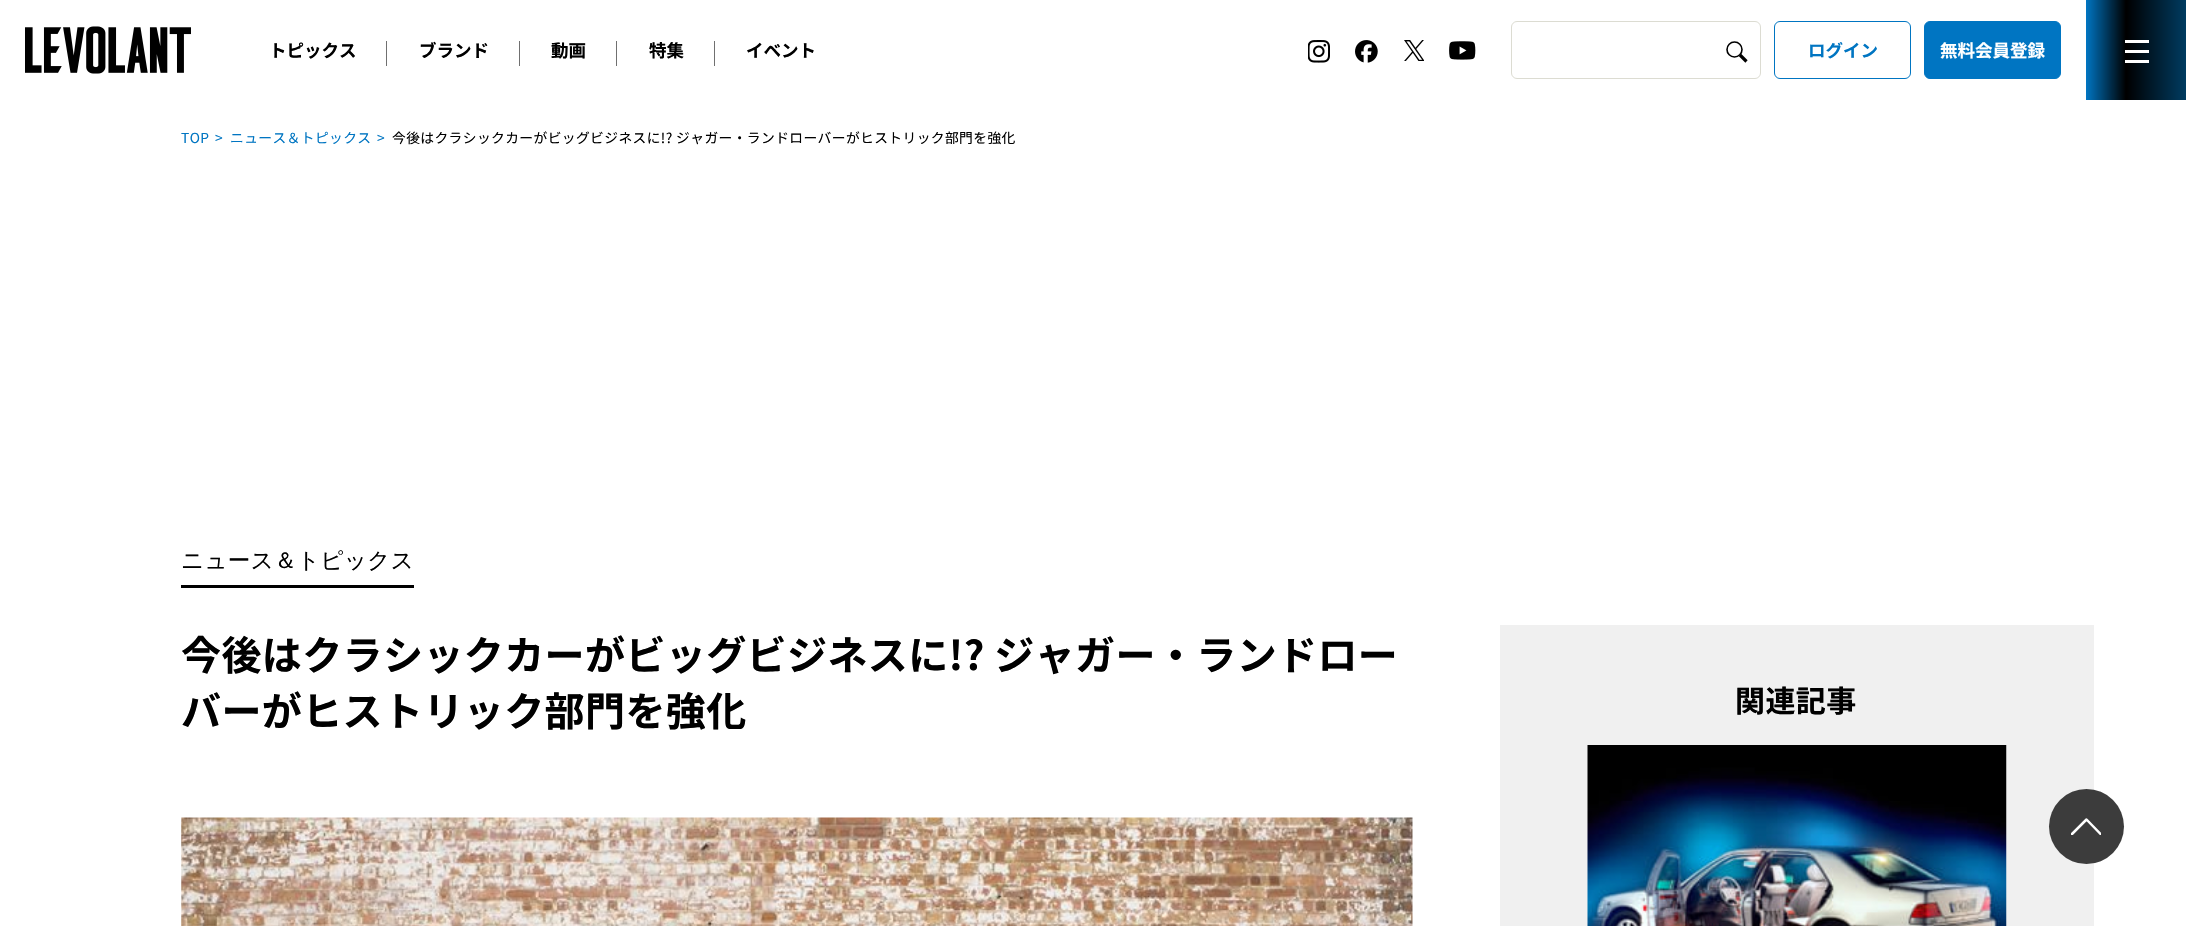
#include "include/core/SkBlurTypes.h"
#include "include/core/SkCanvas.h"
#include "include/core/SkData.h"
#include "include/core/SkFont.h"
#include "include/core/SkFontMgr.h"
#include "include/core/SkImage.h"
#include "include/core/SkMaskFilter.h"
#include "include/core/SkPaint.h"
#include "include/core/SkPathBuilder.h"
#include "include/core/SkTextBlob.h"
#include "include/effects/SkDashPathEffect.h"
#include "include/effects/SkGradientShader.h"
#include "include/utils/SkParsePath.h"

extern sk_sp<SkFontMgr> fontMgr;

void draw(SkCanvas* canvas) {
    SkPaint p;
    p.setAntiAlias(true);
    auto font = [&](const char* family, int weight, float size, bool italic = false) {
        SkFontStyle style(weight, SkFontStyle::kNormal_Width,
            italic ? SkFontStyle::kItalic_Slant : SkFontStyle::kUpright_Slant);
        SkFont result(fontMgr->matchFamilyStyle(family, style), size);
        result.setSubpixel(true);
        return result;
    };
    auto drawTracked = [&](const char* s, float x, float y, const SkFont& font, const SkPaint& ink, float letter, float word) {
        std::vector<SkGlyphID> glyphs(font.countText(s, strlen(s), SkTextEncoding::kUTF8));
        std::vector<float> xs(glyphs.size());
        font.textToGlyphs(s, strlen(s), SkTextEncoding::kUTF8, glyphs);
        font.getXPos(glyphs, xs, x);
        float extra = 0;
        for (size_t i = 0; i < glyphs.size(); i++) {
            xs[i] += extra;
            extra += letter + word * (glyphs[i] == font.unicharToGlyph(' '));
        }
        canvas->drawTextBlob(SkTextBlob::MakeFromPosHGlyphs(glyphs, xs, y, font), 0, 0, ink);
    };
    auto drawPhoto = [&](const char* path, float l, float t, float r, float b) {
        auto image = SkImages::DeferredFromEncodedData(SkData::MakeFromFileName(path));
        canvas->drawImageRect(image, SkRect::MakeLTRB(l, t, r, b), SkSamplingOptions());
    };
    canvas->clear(0xFFFFFFFF);
    drawPhoto("media/1.png", 25, 26, 191, 74);
    auto font1 = font("Noto Sans JP", 700, 17.5f);
    p.setColor(0xFF000000);
    canvas->drawString("トピックス", 269, 57, font1, p);
    p.setColor(0xFF707070);
    canvas->drawRect(SkRect::MakeLTRB(386, 41, 387, 66), p);
    p.setColor(0xFF000000);
    canvas->drawString("ブランド", 419, 57, font1, p);
    p.setColor(0xFF707070);
    canvas->drawRect(SkRect::MakeLTRB(519, 41, 520, 66), p);
    p.setColor(0xFF000000);
    canvas->drawString("動画", 551, 57, font1, p);
    p.setColor(0xFF707070);
    canvas->drawRect(SkRect::MakeLTRB(616, 41, 617, 66), p);
    p.setColor(0xFF000000);
    canvas->drawString("特集", 649, 57, font1, p);
    p.setColor(0xFF707070);
    canvas->drawRect(SkRect::MakeLTRB(714, 41, 715, 66), p);
    p.setColor(0xFF000000);
    canvas->drawString("イベント", 746, 57, font1, p);
    drawPhoto("media/2.png", 1308, 40, 1330, 63);
    drawPhoto("media/3.png", 1355, 40, 1378, 63);
    drawPhoto("media/4.png", 1404, 40, 1424, 61);
    drawPhoto("media/5.png", 1449, 41, 1476, 60);
    p.setStyle(SkPaint::kStroke_Style);
    p.setStrokeWidth(1);
    p.setColor(0xFFDCDCD2);
    canvas->drawRoundRect(SkRect::MakeLTRB(1511.5f, 21.5f, 1760.5f, 78.5f), 5.5f, 5.5f, p);
    p.setStrokeWidth(1.6f);
    p.setColor(0xFF000000);
    canvas->drawCircle(1734.5f, 49.5f, 7.5f, p);
    p.setStrokeWidth(3.2f);
    canvas->drawPath(SkPathBuilder().moveTo(1740, 55).lineTo(1746.5f, 61.5f).detach(), p);
    p.setStrokeWidth(1);
    p.setColor(0xFF0075C2);
    canvas->drawRoundRect(SkRect::MakeLTRB(1774.5f, 21.5f, 1910.5f, 78.5f), 5.5f, 5.5f, p);
    p.setStyle(SkPaint::kFill_Style);
    canvas->drawString("ログイン", 1808, 57, font1, p);
    canvas->drawRoundRect(SkRect::MakeLTRB(1924.5f, 21.5f, 2060.5f, 78.5f), 5.5f, 5.5f, p);
    p.setStyle(SkPaint::kStroke_Style);
    canvas->drawRoundRect(SkRect::MakeLTRB(1924.5f, 21.5f, 2060.5f, 78.5f), 5.5f, 5.5f, p);
    p.setStyle(SkPaint::kFill_Style);
    p.setColor(0xFFFFFFFF);
    canvas->drawString("無料会員登録", 1940, 57, font1, p);
    {
        const SkColor colors[] = {0xFF0075C2, 0xFF000000, 0xFF003B61};
        const float stops[] = {0, 0.4f, 1};
        const SkPoint ends[] = {{2086, 50}, {2186, 50}};
        p.setShader(SkGradientShader::MakeLinear(ends, colors, stops, 3, SkTileMode::kClamp));
        p.setAlpha(255);
    }
    canvas->drawRect(SkRect::MakeLTRB(2086, 0, 2186, 100), p);
    p.setShader(nullptr);
    {
        const struct { float l, t, r, b; SkColor color; } items[] = {
            {2125, 40, 2149, 43, 0xFFFFFFFF},
            {2125, 50, 2149, 53, 0xFFFFFFFF},
            {2125, 60, 2149, 63, 0xFFFFFFFF},
        };
        for (auto [l, t, r, b, color] : items) {
            p.setColor(color);
            canvas->drawRect(SkRect::MakeLTRB(l, t, r, b), p);
        }
    }
    auto font2 = font("Noto Sans JP", 400, 13.75f);
    p.setColor(0xFF0075C2);
    {
        const struct { const char* s; float x, y; } items[] = {
            {"TOP", 181, 143},
            {">", 215, 143},
            {"ニュース＆トピックス", 230, 143},
            {">", 377, 143},
        };
        for (auto [s, x, y] : items) {
            drawTracked(s, x, y, font2, p, 0.4f, 0);
        }
    }
    p.setColor(0xFF000000);
    drawTracked("今後はクラシックカーがビッグビジネスに!? ジャガー・ランドローバーがヒストリック部門を強化", 392, 143, font2, p, 0.4f, 0);
    canvas->drawRect(SkRect::MakeLTRB(181, 585, 414, 588), p);
    auto font3 = font("WenQuanYi Zen Hei", 500, 22.5f);
    drawTracked("ニュース＆トピックス", 181, 568, font3, p, 0.4f, 0);
    auto font4 = font("Noto Sans JP", 700, 40);
    drawTracked("今後はクラシックカーがビッグビジネスに!? ジャガー・ランドロー", 181, 670, font4, p, 0.4f, 0);
    drawTracked("バーがヒストリック部門を強化", 181, 726, font4, p, 0.4f, 0);
    drawPhoto("media/6.png", 181, 817, 1413, 926);
    p.setColor(0xFFF0F0F0);
    canvas->drawRect(SkRect::MakeLTRB(1500, 625, 2094, 926), p);
    auto font5 = font("Noto Sans JP", 700, 30);
    p.setColor(0xFF000000);
    drawTracked("関連記事", 1735, 712, font5, p, 0.4f, 0);
    drawPhoto("media/7.png", 1587, 745, 2007, 926);
    p.setColor(0xFF3C3C3C);
    canvas->drawCircle(2086.5f, 826.5f, 37.5f, p);
    canvas->save();
    canvas->clipRect(SkRect::MakeLTRB(2071, 818, 2101, 835));
    p.setStyle(SkPaint::kStroke_Style);
    p.setStrokeWidth(2.5f);
    p.setStrokeCap(SkPaint::kRound_Cap);
    p.setStrokeJoin(SkPaint::kRound_Join);
    p.setColor(0xFFFFFFFF);
    canvas->drawPath(SkPathBuilder().moveTo(2100.5f, 834).lineTo(2086.5f, 819.5f).lineTo(2072, 834).detach(), p);
    canvas->restore();
}
